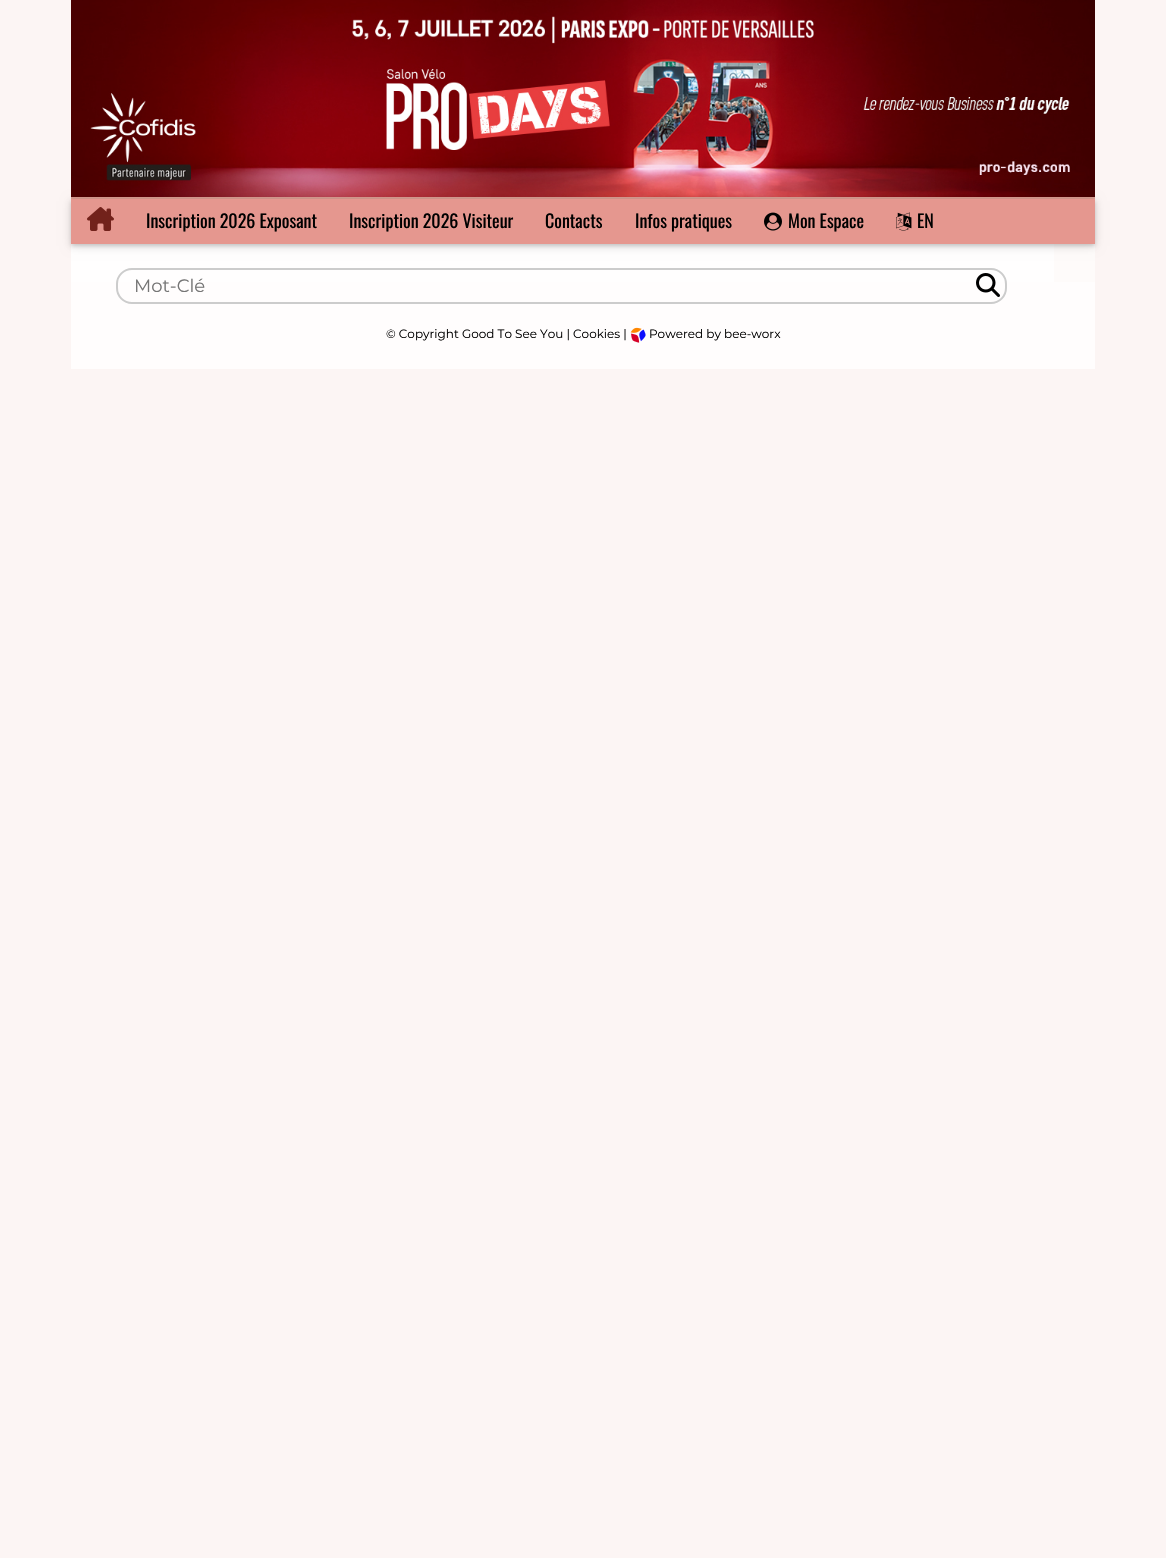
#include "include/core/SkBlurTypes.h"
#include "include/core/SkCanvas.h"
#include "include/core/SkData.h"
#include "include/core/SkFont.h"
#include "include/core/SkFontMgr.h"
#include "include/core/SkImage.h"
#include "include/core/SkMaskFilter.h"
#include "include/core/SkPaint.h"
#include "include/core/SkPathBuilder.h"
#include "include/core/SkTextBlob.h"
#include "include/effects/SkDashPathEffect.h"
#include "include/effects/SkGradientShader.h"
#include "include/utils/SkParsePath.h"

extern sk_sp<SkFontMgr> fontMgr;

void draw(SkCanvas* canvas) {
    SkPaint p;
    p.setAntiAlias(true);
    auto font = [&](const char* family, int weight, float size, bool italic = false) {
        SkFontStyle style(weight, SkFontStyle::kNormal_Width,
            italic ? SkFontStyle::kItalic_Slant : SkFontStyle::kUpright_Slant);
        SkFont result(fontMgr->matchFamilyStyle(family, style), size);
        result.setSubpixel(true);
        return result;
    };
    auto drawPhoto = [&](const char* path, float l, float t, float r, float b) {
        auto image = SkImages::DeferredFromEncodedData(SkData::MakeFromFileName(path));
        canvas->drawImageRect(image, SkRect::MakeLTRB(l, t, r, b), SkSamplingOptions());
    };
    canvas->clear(0xFFFCF5F4);
    p.setColor(0xFFFEFBFA);
    canvas->drawRect(SkRect::MakeLTRB(1054, 244, 1095, 282), p);
    p.setColor(0xFFD99C91);
    canvas->drawRect(SkRect::MakeLTRB(71, 197, 1095, 199), p);
    drawPhoto("media/1.png", 71, 0, 1095, 197);
    p.setColor(0xFFFFFEFE);
    canvas->drawRect(SkRect::MakeLTRB(71, 244, 1054, 282), p);
    p.setColor(0x1F000000);
    p.setMaskFilter(SkMaskFilter::MakeBlur(kNormal_SkBlurStyle, 5));
    canvas->drawRect(SkRect::MakeLTRB(71, 201, 1095, 246), p);
    p.setMaskFilter(nullptr);
    p.setColor(0x29000000);
    p.setMaskFilter(SkMaskFilter::MakeBlur(kNormal_SkBlurStyle, 2));
    canvas->drawRect(SkRect::MakeLTRB(71, 201, 1095, 246), p);
    p.setMaskFilter(nullptr);
    p.setColor(0xFFE5978F);
    canvas->drawRect(SkRect::MakeLTRB(71, 199, 1095, 244), p);
    drawPhoto("media/2.png", 87, 207, 114, 231);
    auto font1 = font("Oswald", 400, 18);
    p.setColor(0xFF000000);
    {
        const struct { const char* s; float x, y; } items[] = {
            {"Inscription 2026 Exposant", 146, 228},
            {"Inscription 2026 Visiteur", 349, 228},
            {"Contacts", 545, 228},
            {"Infos pratiques", 635, 228},
        };
        for (auto [s, x, y] : items) {
            canvas->drawString(s, x, y, font1, p);
        }
    }
    drawPhoto("media/3.png", 764, 212, 782, 231);
    canvas->drawString("Mon Espace", 788, 228, font1, p);
    drawPhoto("media/4.png", 896, 212, 912, 231);
    canvas->drawString("EN", 917, 228, font1, p);
    p.setColor(0xFFFFFDFD);
    canvas->drawRect(SkRect::MakeLTRB(71, 282, 1095, 369), p);
    p.setStyle(SkPaint::kStroke_Style);
    p.setStrokeWidth(2);
    p.setColor(0xFFCCCCCC);
    canvas->drawRoundRect(SkRect::MakeLTRB(117, 269, 1006, 303), 15, 15, p);
    auto font2 = font("Montserrat", 100, 18);
    p.setStyle(SkPaint::kFill_Style);
    p.setColor(0xFF757575);
    canvas->drawString("Mot-Clé", 134, 292, font2, p);
    drawPhoto("media/5.png", 976, 273, 1000, 297);
    auto font3 = font("Montserrat", 100, 12);
    p.setColor(0xFF000000);
    canvas->drawString("© Copyright Good To See You | Cookies |", 386, 338, font3, p);
    drawPhoto("media/6.png", 630, 327, 646, 343);
    canvas->drawString("Powered by bee-worx", 649, 338, font3, p);
}
